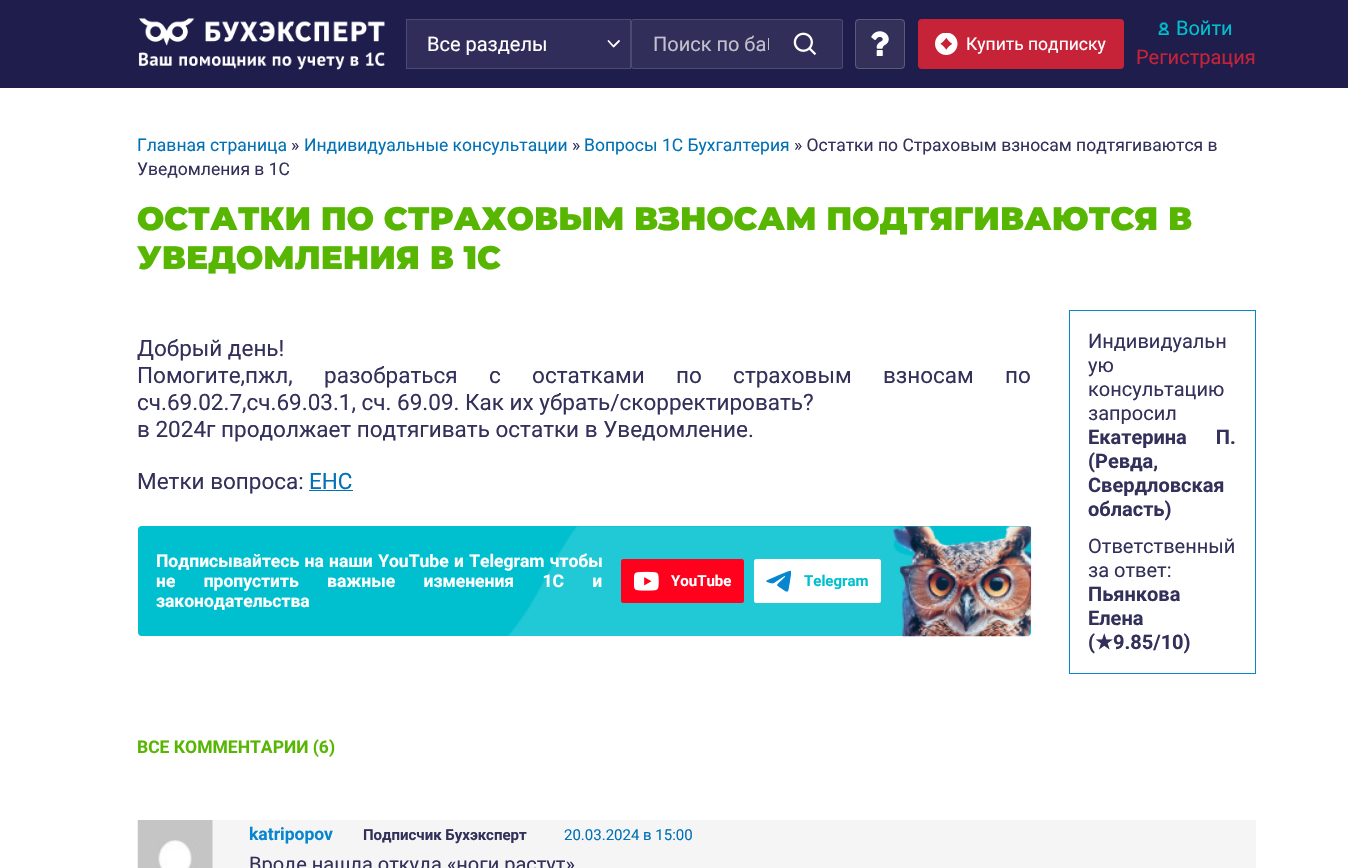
#include "include/core/SkBlurTypes.h"
#include "include/core/SkCanvas.h"
#include "include/core/SkData.h"
#include "include/core/SkFont.h"
#include "include/core/SkFontMgr.h"
#include "include/core/SkImage.h"
#include "include/core/SkMaskFilter.h"
#include "include/core/SkPaint.h"
#include "include/core/SkPathBuilder.h"
#include "include/core/SkTextBlob.h"
#include "include/effects/SkDashPathEffect.h"
#include "include/effects/SkGradientShader.h"
#include "include/utils/SkParsePath.h"

extern sk_sp<SkFontMgr> fontMgr;

void draw(SkCanvas* canvas) {
    SkPaint p;
    p.setAntiAlias(true);
    auto font = [&](const char* family, int weight, float size, bool italic = false) {
        SkFontStyle style(weight, SkFontStyle::kNormal_Width,
            italic ? SkFontStyle::kItalic_Slant : SkFontStyle::kUpright_Slant);
        SkFont result(fontMgr->matchFamilyStyle(family, style), size);
        result.setSubpixel(true);
        return result;
    };
    auto drawTracked = [&](const char* s, float x, float y, const SkFont& font, const SkPaint& ink, float letter, float word) {
        std::vector<SkGlyphID> glyphs(font.countText(s, strlen(s), SkTextEncoding::kUTF8));
        std::vector<float> xs(glyphs.size());
        font.textToGlyphs(s, strlen(s), SkTextEncoding::kUTF8, glyphs);
        font.getXPos(glyphs, xs, x);
        float extra = 0;
        for (size_t i = 0; i < glyphs.size(); i++) {
            xs[i] += extra;
            extra += letter + word * (glyphs[i] == font.unicharToGlyph(' '));
        }
        canvas->drawTextBlob(SkTextBlob::MakeFromPosHGlyphs(glyphs, xs, y, font), 0, 0, ink);
    };
    auto drawPhoto = [&](const char* path, float l, float t, float r, float b) {
        auto image = SkImages::DeferredFromEncodedData(SkData::MakeFromFileName(path));
        canvas->drawImageRect(image, SkRect::MakeLTRB(l, t, r, b), SkSamplingOptions());
    };
    canvas->clear(0xFFFFFFFF);
    p.setColor(0xFF1F1D4C);
    canvas->drawRect(SkRect::MakeLTRB(0, 0, 1348, 88), p);
    drawPhoto("media/1.png", 138, 18, 385, 70);
    p.setColor(0xFF312D5A);
    canvas->drawRect(SkRect::MakeLTRB(407, 20, 630, 68), p);
    p.setStyle(SkPaint::kStroke_Style);
    p.setStrokeWidth(1.8f);
    p.setStrokeCap(SkPaint::kRound_Cap);
    p.setStrokeJoin(SkPaint::kRound_Join);
    p.setColor(0xFFFFFFFF);
    canvas->drawPath(SkPathBuilder().moveTo(608.5f, 41).lineTo(613.5f, 46.5f).lineTo(619, 41).detach(), p);
    p.setStrokeWidth(1);
    p.setStrokeCap(SkPaint::kButt_Cap);
    p.setStrokeJoin(SkPaint::kMiter_Join);
    p.setColor(0xFF4D4A72);
    canvas->drawRect(SkRect::MakeLTRB(406.5f, 19.5f, 630.5f, 68.5f), p);
    auto font1 = font("Roboto", 400, 20);
    p.setStyle(SkPaint::kFill_Style);
    p.setColor(0xFFFFFFFF);
    canvas->drawString("Все разделы", 427, 51, font1, p);
    p.setColor(0xFF312F5A);
    canvas->drawRoundRect(SkRect::MakeLTRB(631, 19, 843, 69), 2.5f, 2.5f, p);
    p.setStyle(SkPaint::kStroke_Style);
    p.setColor(0x29E0E2EA);
    canvas->drawRoundRect(SkRect::MakeLTRB(631.5f, 19.5f, 842.5f, 68.5f), 2, 2, p);
    p.setStyle(SkPaint::kFill_Style);
    p.setColor(0xFFC1C0CD);
    canvas->drawString("Поиск по ба", 653, 51, font1, p);
    p.setColor(0xFFC2C1CE);
    canvas->drawRect(SkRect::MakeLTRB(768, 38, 769, 50), p);
    drawPhoto("media/2.png", 793, 32, 817, 56);
    p.setColor(0xFF33305A);
    canvas->drawRoundRect(SkRect::MakeLTRB(855, 19, 905, 69), 4, 4, p);
    p.setStyle(SkPaint::kStroke_Style);
    p.setColor(0x33FFFFFF);
    canvas->drawRoundRect(SkRect::MakeLTRB(855.5f, 19.5f, 904.5f, 68.5f), 3.5f, 3.5f, p);
    drawPhoto("media/3.png", 871, 31, 889, 56);
    p.setStyle(SkPaint::kFill_Style);
    p.setColor(0xFFC62338);
    canvas->drawRoundRect(SkRect::MakeLTRB(918, 19, 1124, 69), 4, 4, p);
    drawPhoto("media/4.png", 935, 33, 958, 55);
    auto font2 = font("Roboto", 400, 17.5f);
    p.setColor(0xFFFFFFFF);
    canvas->drawString("Купить подписку", 966, 50, font2, p);
    drawPhoto("media/5.png", 1158, 22, 1169, 35);
    p.setColor(0xFF00C0CF);
    canvas->drawString("Войти", 1176, 35, font1, p);
    p.setColor(0xFFC62338);
    canvas->drawString("Регистрация", 1136, 64, font1, p);
    p.setColor(0xFF0271B6);
    canvas->drawString("Главная страница", 137, 151, font2, p);
    p.setColor(0xFF33305A);
    canvas->drawString("»", 291, 151, font2, p);
    p.setColor(0xFF0271B6);
    canvas->drawString("Индивидуальные консультации", 304, 151, font2, p);
    p.setColor(0xFF33305A);
    canvas->drawString("»", 572, 151, font2, p);
    p.setColor(0xFF0271B6);
    canvas->drawString("Вопросы 1С Бухгалтерия", 584, 151, font2, p);
    p.setColor(0xFF33305A);
    canvas->drawString("» Остатки по Страховым взносам подтягиваются в", 794, 151, font2, p);
    canvas->drawString("Уведомления в 1С", 137, 175, font2, p);
    auto font3 = font("Montserrat", 900, 32.5f);
    p.setColor(0xFF57B602);
    canvas->drawString("ОСТАТКИ ПО СТРАХОВЫМ ВЗНОСАМ ПОДТЯГИВАЮТСЯ В", 137, 230, font3, p);
    canvas->drawString("УВЕДОМЛЕНИЯ В 1С", 137, 269, font3, p);
    auto font4 = font("Roboto", 400, 22.5f);
    p.setColor(0xFF33305A);
    canvas->drawString("Добрый день!", 137, 356, font4, p);
    drawTracked("Помогите,пжл, разобраться с остатками по страховым взносам по", 137, 383, font4, p, 0, 25.75f);
    canvas->drawString("сч.69.02.7,сч.69.03.1, сч. 69.09. Как их убрать/скорректировать?", 137, 410, font4, p);
    canvas->drawString("в 2024г продолжает подтягивать остатки в Уведомление.", 137, 437, font4, p);
    p.setStyle(SkPaint::kStroke_Style);
    p.setColor(0xFF0785CE);
    canvas->drawRect(SkRect::MakeLTRB(1069.5f, 310.5f, 1255.5f, 673.5f), p);
    p.setStyle(SkPaint::kFill_Style);
    p.setColor(0xFF33305A);
    {
        const struct { const char* s; float x, y; } items[] = {
            {"Индивидуальн", 1088, 348},
            {"ую", 1088, 372},
            {"консультацию", 1088, 396},
            {"запросил", 1088, 420},
        };
        for (auto [s, x, y] : items) {
            canvas->drawString(s, x, y, font1, p);
        }
    }
    auto font5 = font("Roboto", 700, 20);
    drawTracked("Екатерина П.", 1088, 444, font5, p, 0, 24);
    {
        const struct { const char* s; float x, y; } items[] = {
            {"(Ревда,", 1088, 468},
            {"Свердловская", 1088, 492},
            {"область)", 1088, 516},
        };
        for (auto [s, x, y] : items) {
            canvas->drawString(s, x, y, font5, p);
        }
    }
    canvas->drawString("Ответственный", 1088, 553, font1, p);
    canvas->drawString("за ответ:", 1088, 577, font1, p);
    {
        const struct { const char* s; float x, y; } items[] = {
            {"Пьянкова", 1088, 601},
            {"Елена", 1088, 625},
            {"(", 1088, 649},
        };
        for (auto [s, x, y] : items) {
            canvas->drawString(s, x, y, font5, p);
        }
    }
    auto font6 = font("DejaVu Sans", 700, 20);
    canvas->drawString("★", 1095, 649, font6, p);
    canvas->drawString("9.85/10)", 1113, 649, font5, p);
    canvas->drawString("Метки вопроса:", 137, 489, font4, p);
    p.setColor(0xFF0271B6);
    canvas->drawString("ЕНС", 309, 489, font4, p);
    canvas->drawRect(SkRect::MakeLTRB(309, 490, 353, 491), p);
    p.setColor(0xFF00C0CF);
    canvas->drawRoundRect(SkRect::MakeLTRB(138, 526, 1031, 636), 4, 4, p);
    drawPhoto("media/6.png", 508, 526, 916, 636);
    auto font7 = font("Roboto", 700, 17.5f);
    p.setColor(0xFFFFFFFF);
    drawTracked("Подписывайтесь на наши YouTube и Telegram чтобы", 156, 567, font7, p, 0, 1);
    drawTracked("не пропустить важные изменения 1С и", 156, 587, font7, p, 0, 24);
    canvas->drawString("законодательства", 156, 607, font7, p);
    p.setColor(0xFFFF001D);
    canvas->drawRoundRect(SkRect::MakeLTRB(621, 559, 744, 603), 2.5f, 2.5f, p);
    drawPhoto("media/7.png", 634, 571, 659, 591);
    auto font8 = font("Roboto", 700, 15);
    p.setColor(0xFFFFFFFF);
    canvas->drawString("YouTube", 671, 586, font8, p);
    canvas->drawRoundRect(SkRect::MakeLTRB(754, 559, 881, 603), 2.5f, 2.5f, p);
    drawPhoto("media/8.png", 766, 570, 791, 592);
    p.setColor(0xFF00C0CF);
    canvas->drawString("Telegram", 804, 586, font8, p);
    drawPhoto("media/9.png", 892, 526, 1032, 637);
    p.setColor(0xFF57B602);
    canvas->drawString("ВСЕ КОММЕНТАРИИ (6)", 137, 753, font7, p);
    p.setColor(0xFFF5F5F5);
    canvas->drawRect(SkRect::MakeLTRB(212, 820, 1256, 868), p);
    drawPhoto("media/10.png", 137, 820, 213, 868);
    p.setColor(0xFF0785CE);
    canvas->drawString("katripopov", 249, 840, font7, p);
    p.setColor(0xFF33305A);
    canvas->drawString("Подписчик Бухэксперт", 363, 840, font8, p);
    auto font9 = font("Roboto", 400, 15);
    p.setColor(0xFF0271B6);
    canvas->drawString("20.03.2024 в 15:00", 564, 840, font9, p);
    p.setColor(0xFF33305A);
    canvas->drawString("Вроде нашла откуда «ноги растут»", 249, 871, font1, p);
}
